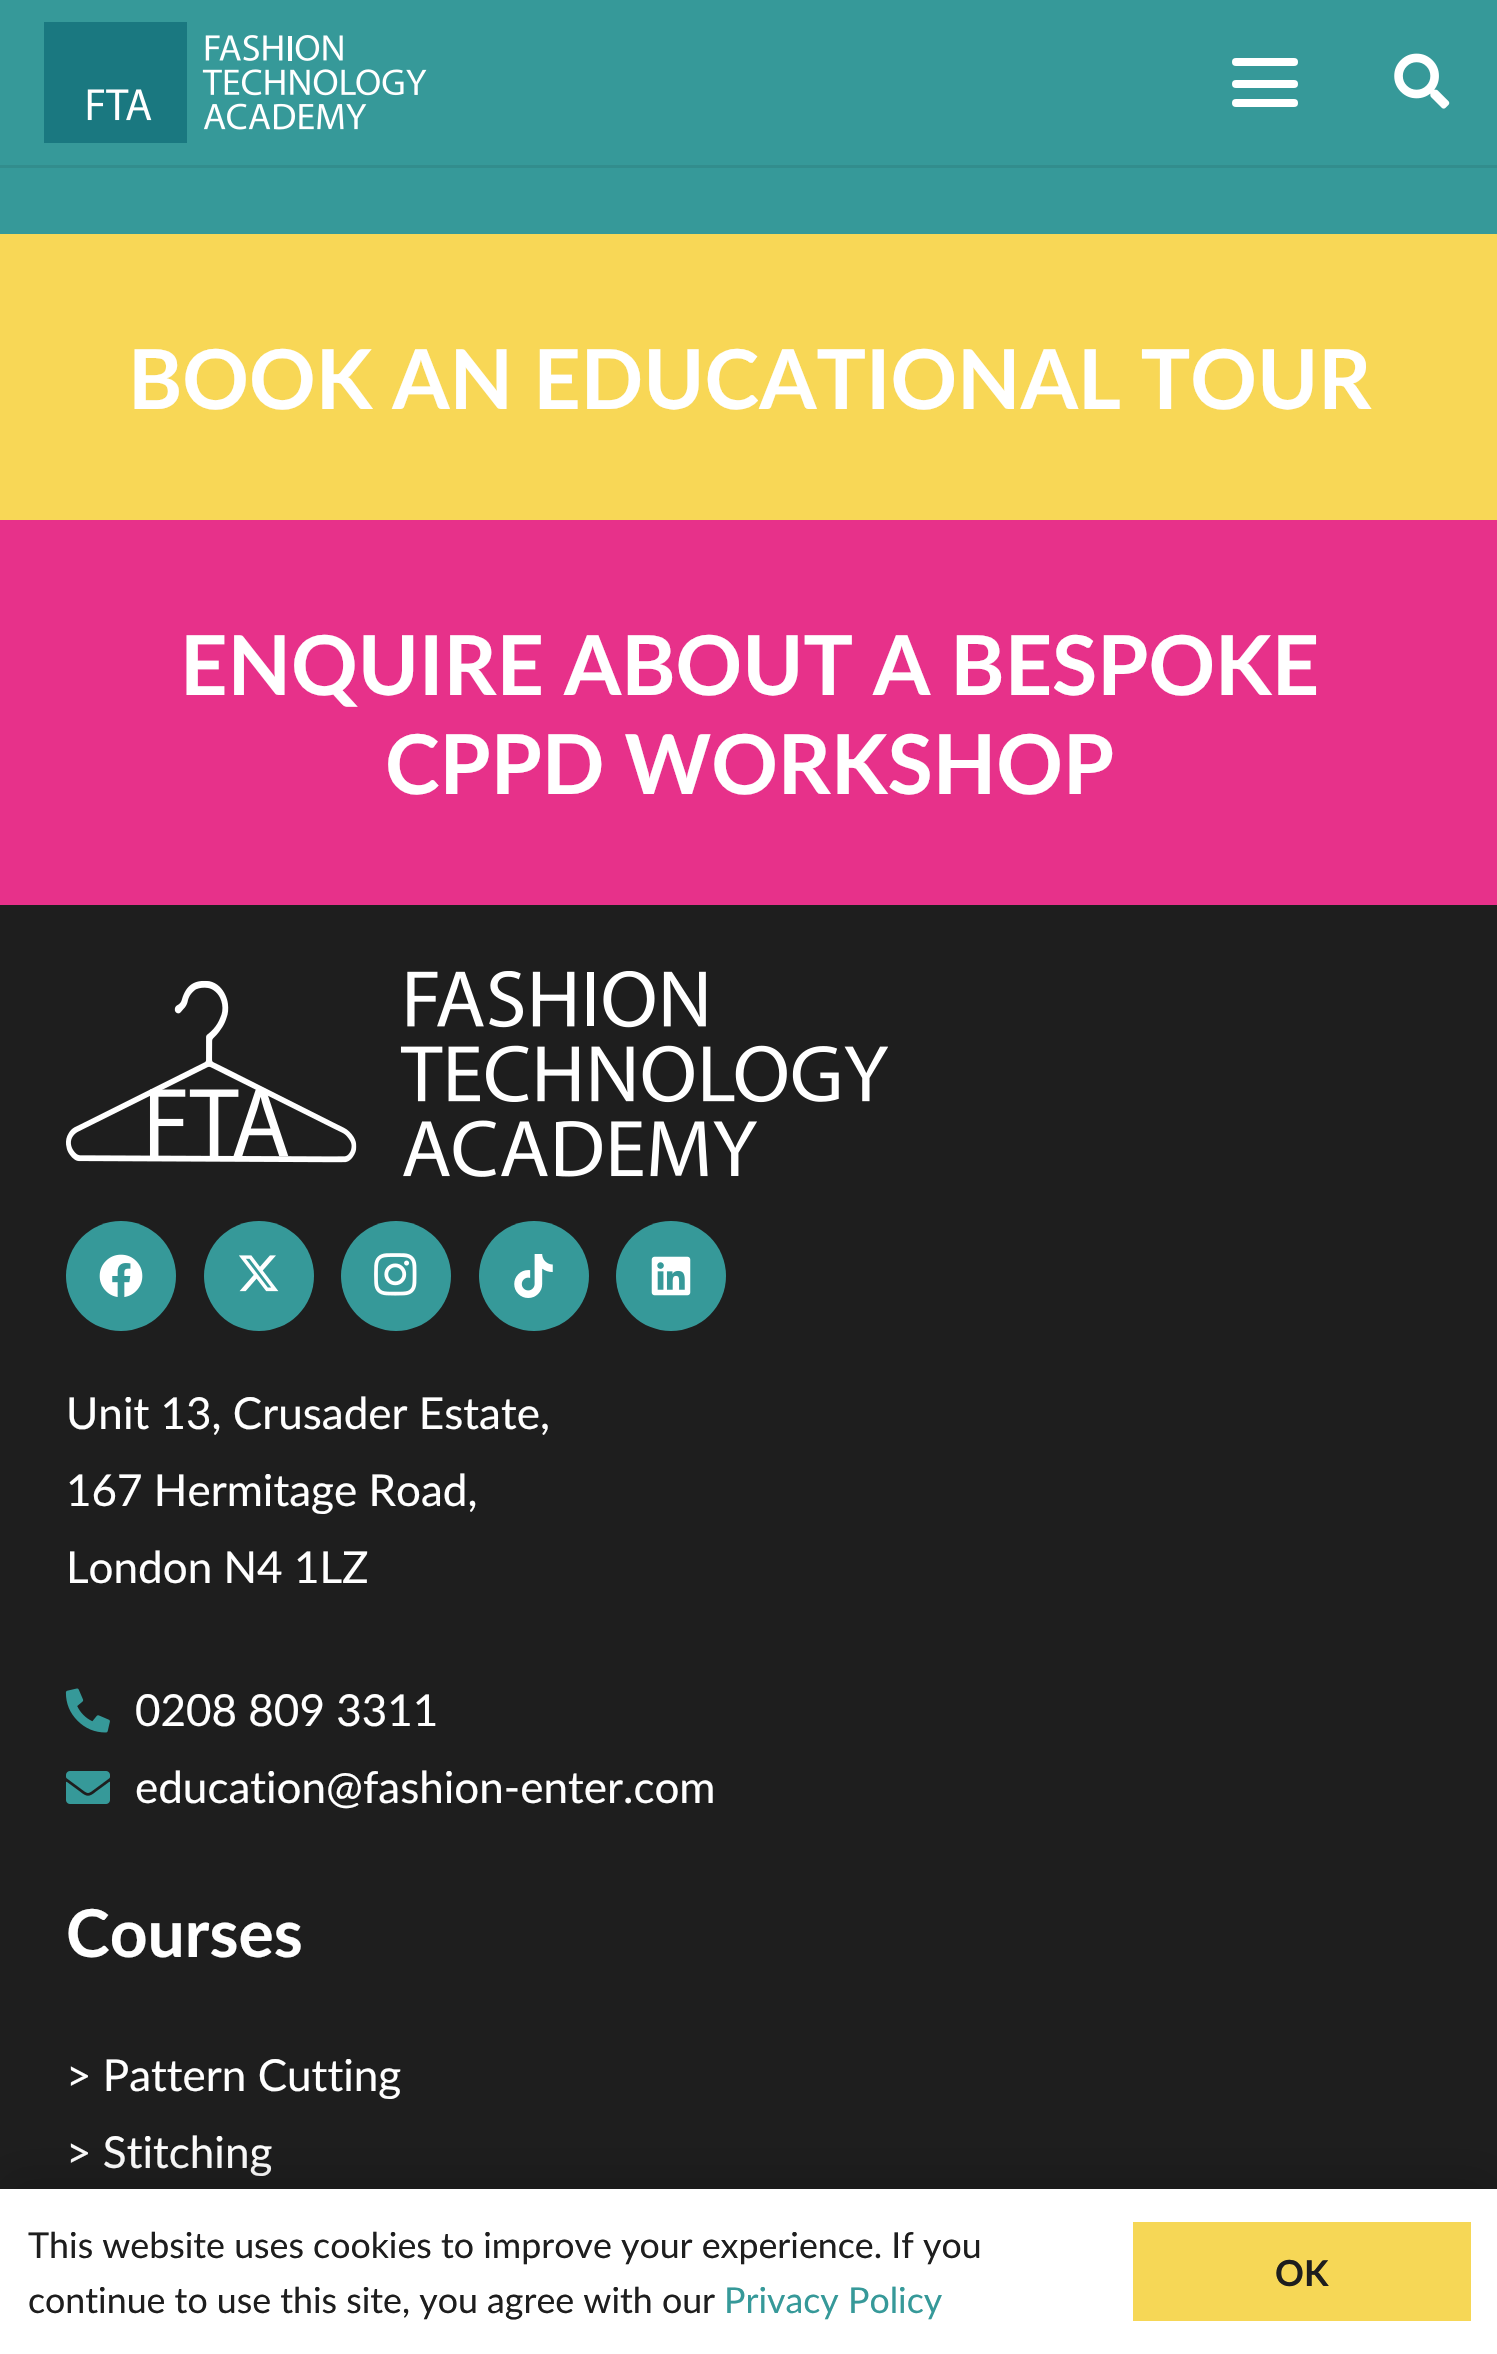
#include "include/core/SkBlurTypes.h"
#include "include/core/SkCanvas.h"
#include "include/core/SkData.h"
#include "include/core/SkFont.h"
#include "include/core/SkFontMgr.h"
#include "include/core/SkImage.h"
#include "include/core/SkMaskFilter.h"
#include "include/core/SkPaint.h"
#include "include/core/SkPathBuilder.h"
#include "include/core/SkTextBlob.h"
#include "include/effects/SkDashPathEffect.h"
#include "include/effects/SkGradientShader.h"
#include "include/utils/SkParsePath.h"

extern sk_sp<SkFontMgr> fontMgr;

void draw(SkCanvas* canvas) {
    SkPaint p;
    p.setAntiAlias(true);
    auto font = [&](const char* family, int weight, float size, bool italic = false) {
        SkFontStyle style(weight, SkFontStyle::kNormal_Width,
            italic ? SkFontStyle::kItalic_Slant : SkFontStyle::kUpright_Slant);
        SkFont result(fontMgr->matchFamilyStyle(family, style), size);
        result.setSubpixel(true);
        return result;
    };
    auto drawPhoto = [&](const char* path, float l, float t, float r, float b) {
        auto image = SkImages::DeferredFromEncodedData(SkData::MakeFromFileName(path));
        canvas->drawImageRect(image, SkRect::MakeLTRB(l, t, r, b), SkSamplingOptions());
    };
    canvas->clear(0xFF369999);
    p.setColor(0xFF328D8D);
    canvas->drawPath(SkPathBuilder().moveTo(0, 165).lineTo(0, 168).lineTo(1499, 168).lineTo(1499, 3).lineTo(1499, 165).close().detach(), p);
    drawPhoto("media/1.png", 44, 22, 427, 143);
    p.setColor(0xFFFFFFFF);
    canvas->drawRoundRect(SkRect::MakeLTRB(1232, 80, 1298, 88), 4, 4, p);
    canvas->drawRoundRect(SkRect::MakeLTRB(1232, 58, 1298, 66), 4, 4, p);
    canvas->drawRoundRect(SkRect::MakeLTRB(1232, 99, 1298, 107), 4, 4, p);
    drawPhoto("media/2.png", 1394, 53, 1450, 109);
    p.setColor(0xFFF8D756);
    canvas->drawRect(SkRect::MakeLTRB(0, 234, 1497, 520), p);
    auto font1 = font("Lato", 700, 82.5f);
    p.setColor(0xFFFFFFFF);
    canvas->drawString("BOOK AN EDUCATIONAL TOUR", 128, 409, font1, p);
    p.setColor(0xFFE7318A);
    canvas->drawRect(SkRect::MakeLTRB(0, 520, 1497, 905), p);
    p.setColor(0xFFFFFFFF);
    canvas->drawString("ENQUIRE ABOUT A BESPOKE", 180, 695, font1, p);
    canvas->drawString("CPPD WORKSHOP", 385, 794, font1, p);
    p.setColor(0xFF1E1E1E);
    canvas->drawRect(SkRect::MakeLTRB(0, 905, 1497, 2189), p);
    drawPhoto("media/3.png", 66, 971, 888, 1177);
    p.setColor(0xFF369999);
    canvas->drawCircle(121, 1276, 55, p);
    drawPhoto("media/4.png", 99, 1254, 143, 1297);
    canvas->drawCircle(259, 1276, 55, p);
    drawPhoto("media/5.png", 239, 1255, 279, 1292);
    canvas->drawCircle(396, 1276, 55, p);
    drawPhoto("media/6.png", 374, 1253, 417, 1296);
    canvas->drawCircle(534, 1276, 55, p);
    drawPhoto("media/7.png", 514, 1254, 553, 1298);
    canvas->drawCircle(671, 1276, 55, p);
    drawPhoto("media/8.png", 651, 1256, 691, 1296);
    auto font2 = font("Lato", 400, 44);
    p.setColor(0xFFFFFFFF);
    {
        const struct { const char* s; float x, y; } items[] = {
            {"Unit 13, Crusader Estate,", 66, 1429},
            {"167 Hermitage Road,", 66, 1506},
            {"London N4 1LZ", 66, 1583},
        };
        for (auto [s, x, y] : items) {
            canvas->drawString(s, x, y, font2, p);
        }
    }
    drawPhoto("media/9.png", 65, 1688, 110, 1733);
    canvas->drawString("0208 809 3311", 135, 1726, font2, p);
    drawPhoto("media/10.png", 66, 1771, 110, 1804);
    canvas->drawString("education@fashion-enter.com", 135, 1803, font2, p);
    auto font3 = font("Lato", 700, 66);
    canvas->drawString("Courses", 66, 1957, font3, p);
    canvas->drawString("> Pattern Cutting", 66, 2091, font2, p);
    canvas->drawString("> Stitching", 66, 2168, font2, p);
    p.setColor(0x26000000);
    p.setMaskFilter(SkMaskFilter::MakeBlur(kNormal_SkBlurStyle, 20.5f));
    canvas->drawRect(SkRect::MakeLTRB(0, 2175, 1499, 2340), p);
    p.setMaskFilter(nullptr);
    p.setColor(0xFFFFFFFF);
    canvas->drawRect(SkRect::MakeLTRB(0, 2189, 1497, 2354), p);
    auto font4 = font("Lato", 400, 35.75f);
    p.setColor(0xFF1E1E1E);
    canvas->drawString("This website uses cookies to improve your experience. If you", 28, 2258, font4, p);
    canvas->drawString("continue to use this site, you agree with our", 28, 2313, font4, p);
    p.setColor(0xFF369999);
    canvas->drawString("Privacy Policy", 724, 2313, font4, p);
    p.setColor(0xFFF6D756);
    canvas->drawRect(SkRect::MakeLTRB(1133, 2222, 1471, 2321), p);
    auto font5 = font("Lato", 700, 35.75f);
    p.setColor(0xFF1E1E1E);
    canvas->drawString("OK", 1275, 2286, font5, p);
}
